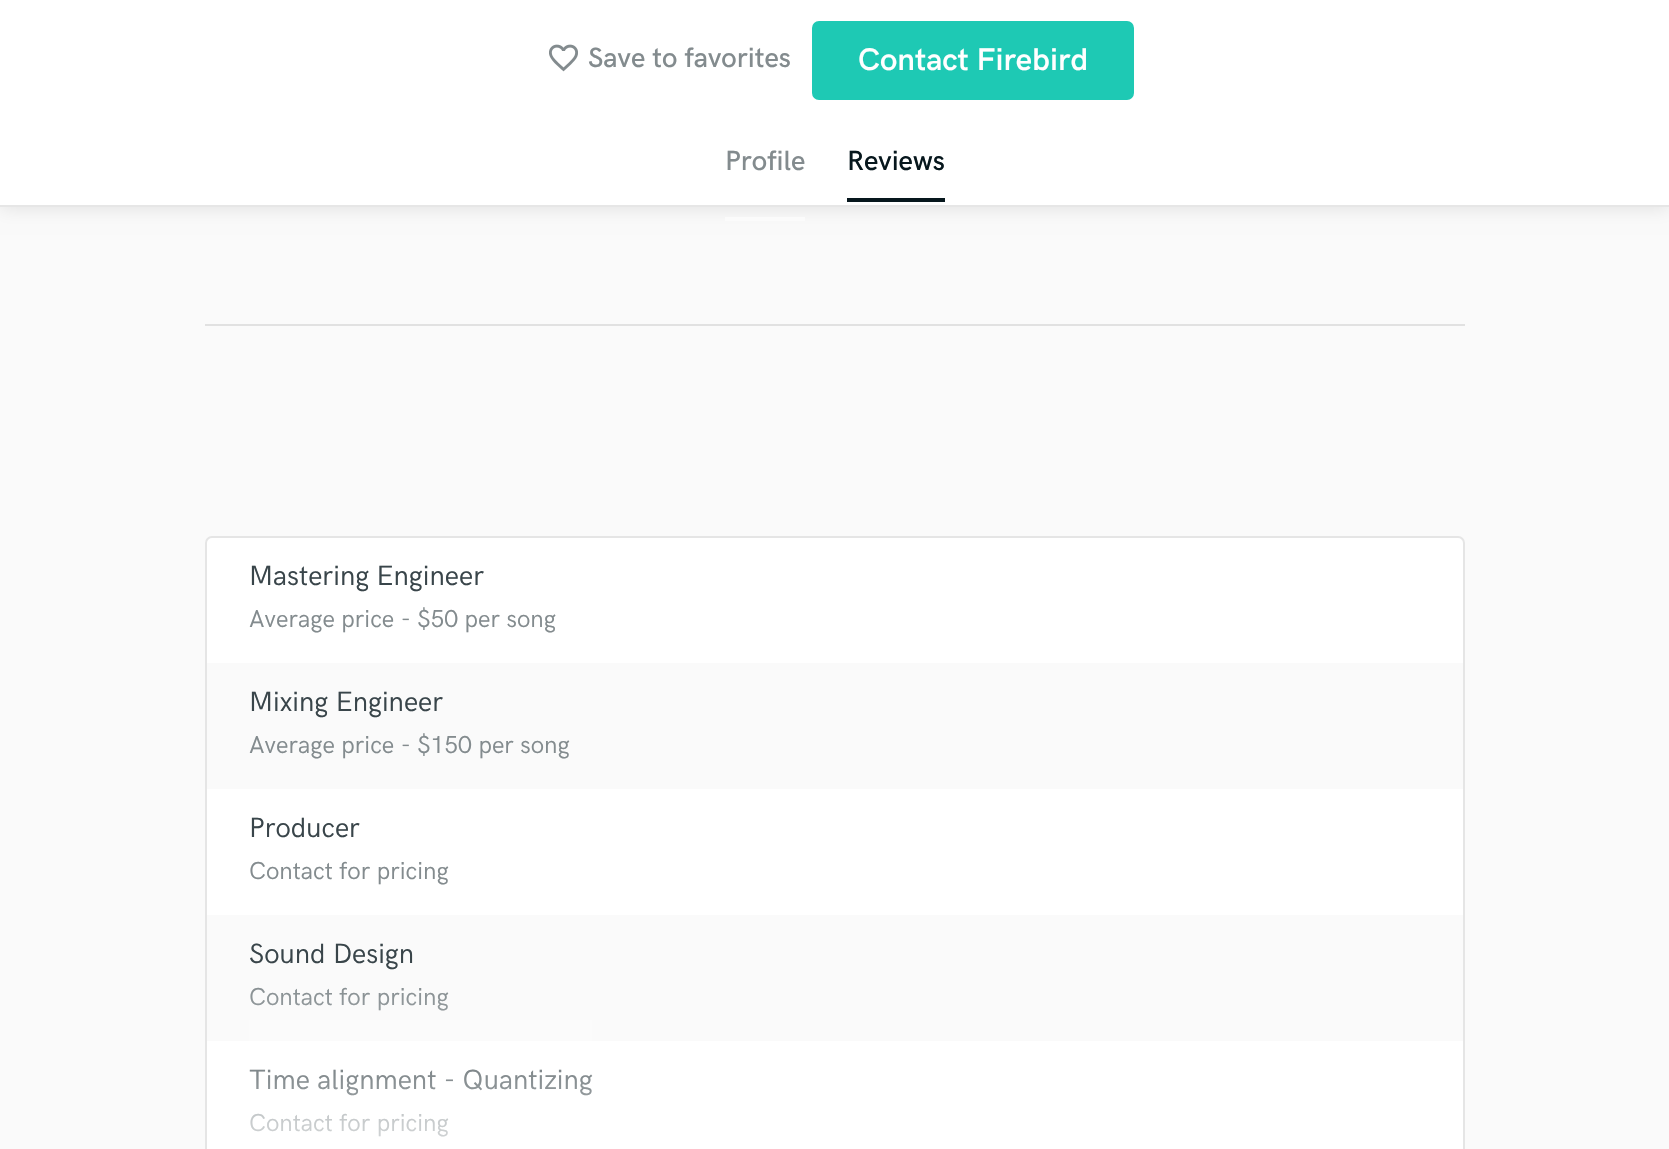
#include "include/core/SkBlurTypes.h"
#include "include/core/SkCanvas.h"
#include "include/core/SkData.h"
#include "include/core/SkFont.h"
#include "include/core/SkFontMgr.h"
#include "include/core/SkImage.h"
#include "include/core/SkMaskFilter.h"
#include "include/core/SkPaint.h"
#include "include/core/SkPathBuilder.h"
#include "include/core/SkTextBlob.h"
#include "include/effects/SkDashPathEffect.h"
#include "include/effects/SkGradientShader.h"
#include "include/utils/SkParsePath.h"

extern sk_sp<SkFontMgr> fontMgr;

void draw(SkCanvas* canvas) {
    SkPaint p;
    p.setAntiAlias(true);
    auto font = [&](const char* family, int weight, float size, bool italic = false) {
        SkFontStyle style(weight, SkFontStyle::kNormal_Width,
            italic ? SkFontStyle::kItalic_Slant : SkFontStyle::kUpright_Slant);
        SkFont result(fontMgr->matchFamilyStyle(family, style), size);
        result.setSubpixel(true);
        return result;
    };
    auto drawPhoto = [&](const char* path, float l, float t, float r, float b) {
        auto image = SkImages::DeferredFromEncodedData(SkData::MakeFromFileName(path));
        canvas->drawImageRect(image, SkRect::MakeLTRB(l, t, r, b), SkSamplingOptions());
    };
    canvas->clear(0xFFFAFAFA);
    p.setColor(0x1A000000);
    p.setMaskFilter(SkMaskFilter::MakeBlur(kNormal_SkBlurStyle, 9));
    canvas->drawRect(SkRect::MakeLTRB(0, 2, 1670, 208), p);
    p.setMaskFilter(nullptr);
    p.setColor(0xFFFFFFFF);
    canvas->drawRect(SkRect::MakeLTRB(0, 0, 1669, 205), p);
    p.setColor(0xFFE6E6E6);
    canvas->drawRect(SkRect::MakeLTRB(0, 205, 1669, 207), p);
    drawPhoto("media/1.png", 549, 44, 578, 72);
    auto font1 = font("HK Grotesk", 500, 28);
    p.setColor(0xFF838B8E);
    canvas->drawString("Save to favorites", 588, 67, font1, p);
    p.setColor(0xFF1EC9B4);
    canvas->drawRoundRect(SkRect::MakeLTRB(814, 23, 1132, 98), 5, 5, p);
    p.setStyle(SkPaint::kStroke_Style);
    p.setStrokeWidth(4);
    canvas->drawRoundRect(SkRect::MakeLTRB(814, 23, 1132, 98), 5, 5, p);
    auto font2 = font("HK Grotesk", 600, 31.5f);
    p.setStyle(SkPaint::kFill_Style);
    p.setColor(0xFFFFFFFF);
    canvas->drawString("Contact Firebird", 858, 70, font2, p);
    p.setColor(0xFF838B8E);
    canvas->drawString("Profile", 725, 170, font1, p);
    p.setColor(0xFFFBFBFB);
    canvas->drawRect(SkRect::MakeLTRB(725, 217, 805, 221), p);
    p.setColor(0xFF07171D);
    canvas->drawString("Reviews", 847, 170, font1, p);
    canvas->drawRect(SkRect::MakeLTRB(847, 198, 945, 202), p);
    p.setColor(0xFFE1E1E1);
    canvas->drawRect(SkRect::MakeLTRB(205, 324, 1465, 326), p);
    p.setColor(0xFFFFFFFF);
    canvas->drawRoundRect(SkRect::MakeLTRB(206, 537, 1464, 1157), 6, 6, p);
    p.setStyle(SkPaint::kStroke_Style);
    p.setStrokeWidth(2);
    p.setColor(0xFFE5E5E5);
    canvas->drawRoundRect(SkRect::MakeLTRB(206, 537, 1464, 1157), 6, 6, p);
    auto font3 = font("HK Grotesk", 400, 28);
    p.setStyle(SkPaint::kFill_Style);
    p.setColor(0xFF39454A);
    canvas->drawString("Mastering Engineer", 249, 585, font3, p);
    auto font4 = font("HK Grotesk", 400, 24.5f);
    p.setColor(0xFF838B8E);
    canvas->drawString("Average price - $50 per song", 249, 627, font4, p);
    p.setColor(0xFFFAFAFA);
    canvas->drawRect(SkRect::MakeLTRB(207, 663, 1463, 789), p);
    p.setColor(0xFF39454A);
    canvas->drawString("Mixing Engineer", 249, 711, font3, p);
    p.setColor(0xFF838B8E);
    canvas->drawString("Average price - $150 per song", 249, 753, font4, p);
    p.setColor(0xFF39454A);
    canvas->drawString("Producer", 249, 837, font3, p);
    p.setColor(0xFF838B8E);
    canvas->drawString("Contact for pricing", 249, 879, font4, p);
    p.setColor(0xFFFAFAFA);
    canvas->drawRect(SkRect::MakeLTRB(207, 915, 1463, 1041), p);
    p.setColor(0xFF39454A);
    canvas->drawString("Sound Design", 249, 963, font3, p);
    p.setColor(0xFF838B8E);
    canvas->drawString("Contact for pricing", 249, 1005, font4, p);
    p.setColor(0xFF39454A);
    canvas->drawString("Time alignment - Quantizing", 249, 1089, font3, p);
    p.setColor(0xFF838B8E);
    canvas->drawString("Contact for pricing", 249, 1131, font4, p);
    {
        const SkColor colors[] = {0x00FFFFFF, 0xFFFFFFFF};
        const float stops[] = {0, 1};
        const SkPoint ends[] = {{835, 977}, {835, 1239}};
        p.setShader(SkGradientShader::MakeLinear(ends, colors, stops, 2, SkTileMode::kClamp));
        p.setAlpha(255);
    }
    canvas->drawRect(SkRect::MakeLTRB(249, 988, 592, 1137), p);
}
